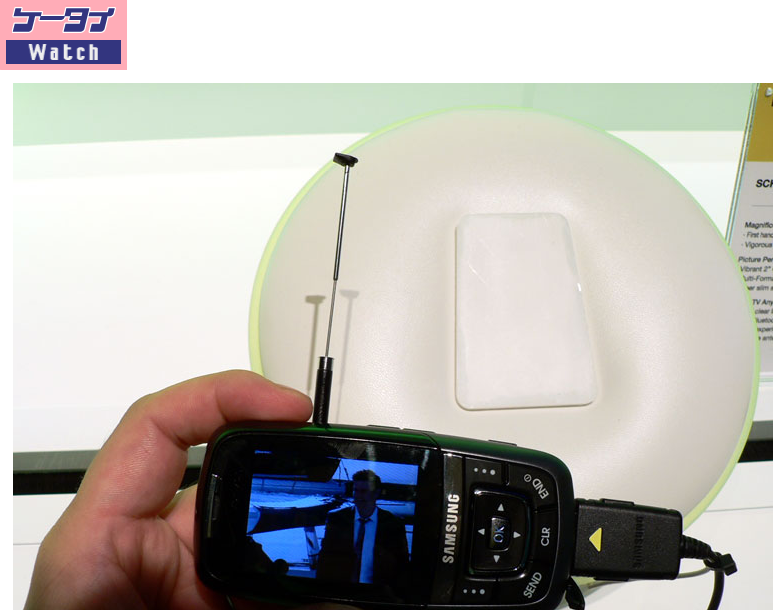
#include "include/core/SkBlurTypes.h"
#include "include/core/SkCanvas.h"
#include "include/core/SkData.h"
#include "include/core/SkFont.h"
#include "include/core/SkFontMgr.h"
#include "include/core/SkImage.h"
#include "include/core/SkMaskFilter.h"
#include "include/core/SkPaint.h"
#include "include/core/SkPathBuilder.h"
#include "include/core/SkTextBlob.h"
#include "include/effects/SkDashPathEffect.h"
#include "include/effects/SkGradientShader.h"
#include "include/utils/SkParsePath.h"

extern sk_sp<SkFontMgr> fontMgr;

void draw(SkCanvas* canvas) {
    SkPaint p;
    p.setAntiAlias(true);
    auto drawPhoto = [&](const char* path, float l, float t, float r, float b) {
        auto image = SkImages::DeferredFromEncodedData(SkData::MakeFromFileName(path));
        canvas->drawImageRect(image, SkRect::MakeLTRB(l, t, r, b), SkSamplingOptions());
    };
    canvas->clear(0xFFFFFFFF);
    p.setColor(0xFFFFACB7);
    canvas->drawRect(SkRect::MakeLTRB(0, 0, 127, 70), p);
    drawPhoto("media/1.png", 0, 5, 121, 70);
    drawPhoto("media/2.png", 13, 83, 773, 610);
}
